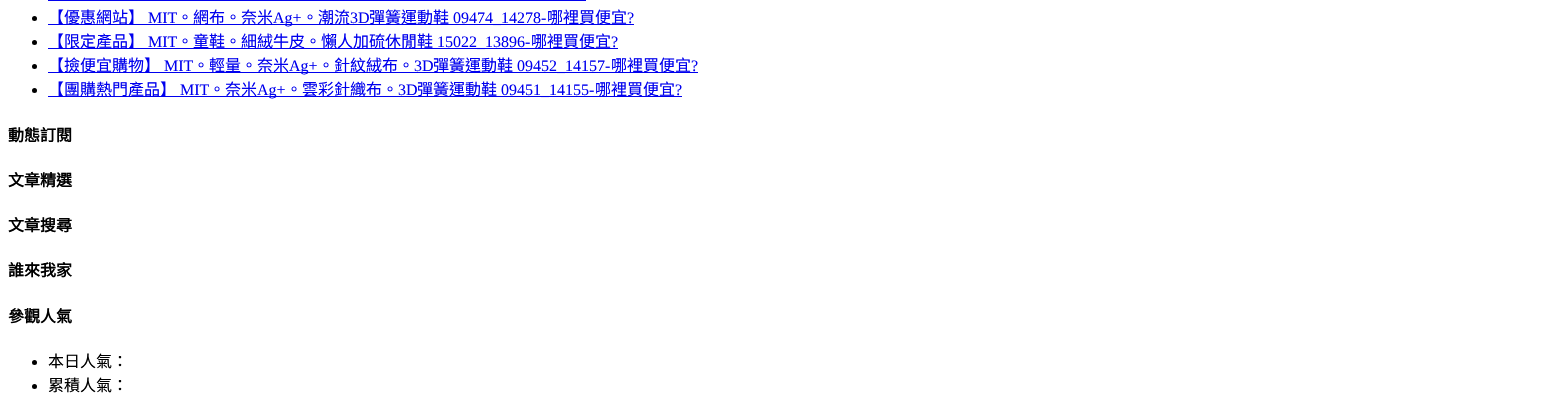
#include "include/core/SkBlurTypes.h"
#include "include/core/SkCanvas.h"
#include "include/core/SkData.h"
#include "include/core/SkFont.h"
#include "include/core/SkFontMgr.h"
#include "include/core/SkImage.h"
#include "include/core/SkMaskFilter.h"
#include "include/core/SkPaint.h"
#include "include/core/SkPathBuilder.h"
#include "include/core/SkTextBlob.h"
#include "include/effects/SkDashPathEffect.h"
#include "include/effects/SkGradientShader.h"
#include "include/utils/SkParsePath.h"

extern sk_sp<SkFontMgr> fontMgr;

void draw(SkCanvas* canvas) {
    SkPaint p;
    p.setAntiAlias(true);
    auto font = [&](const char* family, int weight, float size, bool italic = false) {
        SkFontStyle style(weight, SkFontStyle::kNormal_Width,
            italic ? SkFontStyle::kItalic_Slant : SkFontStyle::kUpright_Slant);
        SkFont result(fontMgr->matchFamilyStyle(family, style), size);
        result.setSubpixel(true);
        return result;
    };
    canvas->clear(0xFFFFFFFF);
    p.setColor(0xFF0000EE);
    canvas->drawRect(SkRect::MakeLTRB(48, 0, 586, 1), p);
    p.setColor(0xFF000000);
    canvas->drawCircle(34.5f, 18.5f, 2.5f, p);
    p.setColor(0xFF0000EE);
    canvas->drawRect(SkRect::MakeLTRB(48, 24, 634, 25), p);
    auto font1 = font("Noto Sans CJK TC", 400, 16);
    canvas->drawString("【優惠網站】", 48, 23, font1, p);
    auto font2 = font("Liberation Serif", 400, 16);
    canvas->drawString("MIT", 148, 23, font2, p);
    canvas->drawString("。網布。奈米", 177, 23, font1, p);
    canvas->drawString("Ag+", 273, 23, font2, p);
    canvas->drawString("。潮流", 302, 23, font1, p);
    canvas->drawString("3D", 350, 23, font2, p);
    canvas->drawString("彈簧運動鞋", 369, 23, font1, p);
    canvas->drawString("09474_14278-", 453, 23, font2, p);
    canvas->drawString("哪裡買便宜", 547, 23, font1, p);
    canvas->drawString("?", 627, 23, font2, p);
    p.setColor(0xFF000000);
    canvas->drawCircle(34.5f, 42.5f, 2.5f, p);
    p.setColor(0xFF0000EE);
    canvas->drawRect(SkRect::MakeLTRB(48, 48, 618, 49), p);
    canvas->drawString("【限定產品】", 48, 47, font1, p);
    canvas->drawString("MIT", 148, 47, font2, p);
    canvas->drawString("。童鞋。細絨牛皮。懶人加硫休閒鞋", 177, 47, font1, p);
    canvas->drawString("15022_13896-", 437, 47, font2, p);
    canvas->drawString("哪裡買便宜", 531, 47, font1, p);
    canvas->drawString("?", 611, 47, font2, p);
    p.setColor(0xFF000000);
    canvas->drawCircle(34.5f, 66.5f, 2.5f, p);
    p.setColor(0xFF0000EE);
    canvas->drawRect(SkRect::MakeLTRB(48, 72, 698, 73), p);
    canvas->drawString("【撿便宜購物】", 48, 71, font1, p);
    canvas->drawString("MIT", 164, 71, font2, p);
    canvas->drawString("。輕量。奈米", 193, 71, font1, p);
    canvas->drawString("Ag+", 289, 71, font2, p);
    canvas->drawString("。針紋絨布。", 318, 71, font1, p);
    canvas->drawString("3D", 414, 71, font2, p);
    canvas->drawString("彈簧運動鞋", 433, 71, font1, p);
    canvas->drawString("09452_14157-", 517, 71, font2, p);
    canvas->drawString("哪裡買便宜", 611, 71, font1, p);
    canvas->drawString("?", 691, 71, font2, p);
    p.setColor(0xFF000000);
    canvas->drawCircle(34.5f, 90.5f, 2.5f, p);
    p.setColor(0xFF0000EE);
    canvas->drawRect(SkRect::MakeLTRB(48, 96, 682, 97), p);
    canvas->drawString("【團購熱門產品】", 48, 95, font1, p);
    canvas->drawString("MIT", 180, 95, font2, p);
    canvas->drawString("。奈米", 209, 95, font1, p);
    canvas->drawString("Ag+", 257, 95, font2, p);
    canvas->drawString("。雲彩針織布。", 286, 95, font1, p);
    canvas->drawString("3D", 398, 95, font2, p);
    canvas->drawString("彈簧運動鞋", 417, 95, font1, p);
    canvas->drawString("09451_14155-", 501, 95, font2, p);
    canvas->drawString("哪裡買便宜", 595, 95, font1, p);
    canvas->drawString("?", 675, 95, font2, p);
    auto font3 = font("Noto Sans CJK TC", 700, 16);
    p.setColor(0xFF000000);
    {
        const struct { const char* s; float x, y; } items[] = {
            {"動態訂閱", 8, 141},
            {"文章精選", 8, 186},
            {"文章搜尋", 8, 231},
            {"誰來我家", 8, 276},
            {"參觀人氣", 8, 322},
        };
        for (auto [s, x, y] : items) {
            canvas->drawString(s, x, y, font3, p);
        }
    }
    canvas->drawCircle(34.5f, 362.5f, 2.5f, p);
    canvas->drawString("本日人氣：", 48, 367, font1, p);
    canvas->drawCircle(34.5f, 386.5f, 2.5f, p);
    canvas->drawString("累積人氣：", 48, 391, font1, p);
}
